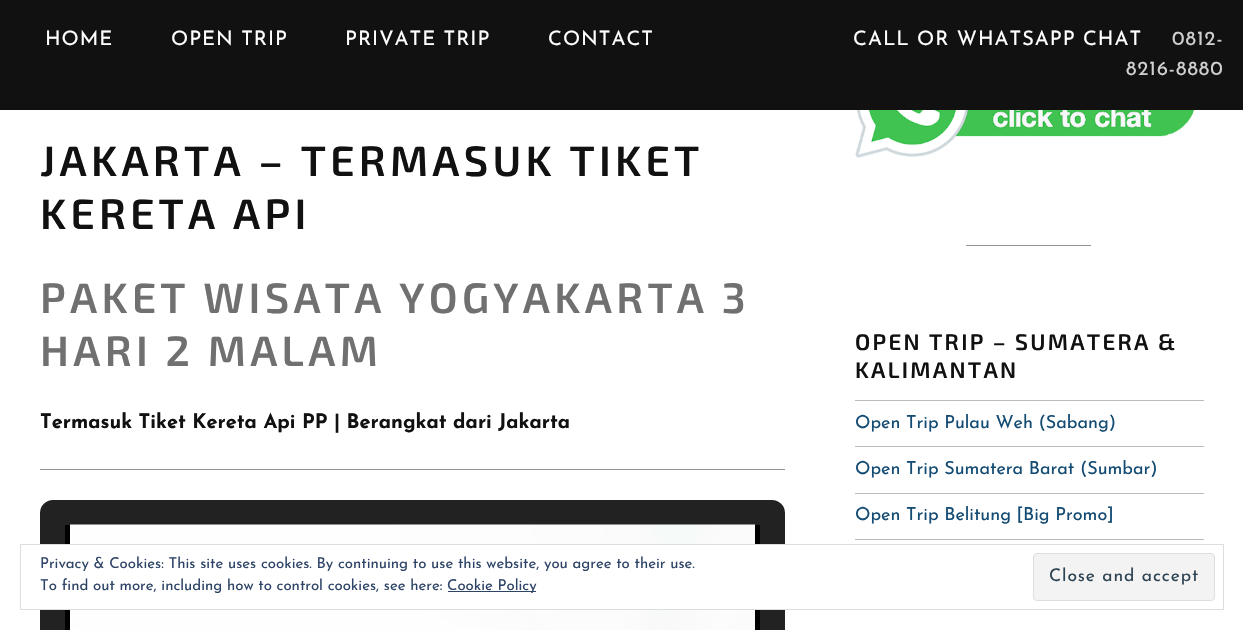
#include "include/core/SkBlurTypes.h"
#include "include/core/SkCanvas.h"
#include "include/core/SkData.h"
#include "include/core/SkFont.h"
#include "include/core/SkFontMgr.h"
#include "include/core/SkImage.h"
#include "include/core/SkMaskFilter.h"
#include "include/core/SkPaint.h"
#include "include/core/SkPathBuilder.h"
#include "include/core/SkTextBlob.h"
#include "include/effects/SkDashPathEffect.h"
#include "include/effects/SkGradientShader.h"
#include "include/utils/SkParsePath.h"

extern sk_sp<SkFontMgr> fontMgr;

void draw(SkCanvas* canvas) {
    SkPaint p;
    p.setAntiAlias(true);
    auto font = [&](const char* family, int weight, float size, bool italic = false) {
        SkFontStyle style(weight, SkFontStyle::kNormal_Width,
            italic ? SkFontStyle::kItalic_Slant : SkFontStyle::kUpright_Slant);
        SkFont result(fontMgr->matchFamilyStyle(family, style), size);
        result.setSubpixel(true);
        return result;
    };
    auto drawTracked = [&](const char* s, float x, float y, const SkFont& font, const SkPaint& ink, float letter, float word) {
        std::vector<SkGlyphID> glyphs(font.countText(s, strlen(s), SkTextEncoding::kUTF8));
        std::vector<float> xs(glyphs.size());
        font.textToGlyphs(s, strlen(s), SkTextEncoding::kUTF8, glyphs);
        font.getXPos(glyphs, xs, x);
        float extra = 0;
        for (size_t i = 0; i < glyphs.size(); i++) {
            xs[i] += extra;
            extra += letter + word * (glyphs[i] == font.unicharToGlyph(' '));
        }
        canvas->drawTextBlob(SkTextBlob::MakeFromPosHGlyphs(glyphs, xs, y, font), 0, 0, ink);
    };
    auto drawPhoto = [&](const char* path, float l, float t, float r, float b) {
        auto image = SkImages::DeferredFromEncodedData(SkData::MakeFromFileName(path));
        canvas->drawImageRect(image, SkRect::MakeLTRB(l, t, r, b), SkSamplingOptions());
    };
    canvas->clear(0xFFFFFFFF);
    p.setColor(0xFF111111);
    canvas->drawRect(SkRect::MakeLTRB(0, 0, 1243, 110), p);
    auto font1 = font("Josefin Sans", 400, 20);
    p.setColor(0xFFFFFFFF);
    {
        const struct { const char* s; float x, y; } items[] = {
            {"HOME", 45, 45},
            {"OPEN TRIP", 171, 45},
            {"PRIVATE TRIP", 345, 45},
            {"CONTACT", 548, 45},
            {"CALL OR WHATSAPP CHAT", 853, 45},
        };
        for (auto [s, x, y] : items) {
            drawTracked(s, x, y, font1, p, 1, 0);
        }
    }
    p.setColor(0xFFCFCFCF);
    drawTracked("0812-", 1172, 45, font1, p, 1, 0);
    drawTracked("8216-8880", 1126, 75, font1, p, 1, 0);
    auto font2 = font("Exo 2", 600, 42.5f);
    p.setColor(0xFF111111);
    drawTracked("JAKARTA – TERMASUK TIKET", 40, 176, font2, p, 4.25f, 0);
    drawTracked("KERETA API", 40, 229, font2, p, 4.25f, 0);
    p.setColor(0xFF707070);
    drawTracked("PAKET WISATA YOGYAKARTA 3", 40, 313, font2, p, 4.25f, 0);
    drawTracked("HARI 2 MALAM", 40, 366, font2, p, 4.25f, 0);
    auto font3 = font("Josefin Sans", 700, 20);
    p.setColor(0xFF111111);
    canvas->drawString("Termasuk Tiket Kereta Api PP | Berangkat dari Jakarta", 40, 428, font3, p);
    p.setColor(0xFF939393);
    canvas->drawRect(SkRect::MakeLTRB(40, 469, 785, 470), p);
    p.setStyle(SkPaint::kStroke_Style);
    p.setStrokeWidth(25);
    p.setColor(0xFF222222);
    canvas->drawRoundRect(SkRect::MakeLTRB(52.5f, 512.5f, 772.5f, 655.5f), 0.5f, 0.5f, p);
    p.setStyle(SkPaint::kFill_Style);
    p.setColor(0xFF000000);
    canvas->drawRect(SkRect::MakeLTRB(65, 525, 760, 630), p);
    drawPhoto("media/1.png", 70, 524, 755, 630);
    drawPhoto("media/2.png", 855, 110, 1195, 158);
    p.setColor(0xFF939393);
    canvas->drawRect(SkRect::MakeLTRB(966, 245, 1091, 246), p);
    auto font4 = font("Exo 2", 600, 22.5f);
    p.setColor(0xFF111111);
    drawTracked("OPEN TRIP – SUMATERA &", 855, 350, font4, p, 2.25f, 0);
    drawTracked("KALIMANTAN", 855, 378, font4, p, 2.25f, 0);
    p.setColor(0xFFBBBBBB);
    canvas->drawRect(SkRect::MakeLTRB(855, 400, 1204, 401), p);
    canvas->drawRect(SkRect::MakeLTRB(855, 446, 1204, 447), p);
    auto font5 = font("Josefin Sans", 400, 18);
    p.setColor(0xFF154C74);
    canvas->drawString("Open Trip Pulau Weh (Sabang)", 855, 428, font5, p);
    p.setColor(0xFFBBBBBB);
    canvas->drawRect(SkRect::MakeLTRB(855, 493, 1204, 494), p);
    p.setColor(0xFF154C74);
    canvas->drawString("Open Trip Sumatera Barat (Sumbar)", 855, 474, font5, p);
    p.setColor(0xFFBBBBBB);
    canvas->drawRect(SkRect::MakeLTRB(855, 539, 1204, 540), p);
    p.setColor(0xFF154C74);
    canvas->drawString("Open Trip Belitung [Big Promo]", 855, 520, font5, p);
    p.setColor(0xFFFFFFFF);
    canvas->drawRect(SkRect::MakeLTRB(40, 545, 785, 609), p);
    p.setStyle(SkPaint::kStroke_Style);
    p.setStrokeWidth(1);
    p.setColor(0xFFDEDEDE);
    canvas->drawRect(SkRect::MakeLTRB(20.5f, 544.5f, 1223.5f, 609.5f), p);
    auto font6 = font("Josefin Sans", 400, 15);
    p.setStyle(SkPaint::kFill_Style);
    p.setColor(0xFF2E4467);
    canvas->drawString("Privacy & Cookies: This site uses cookies. By continuing to use this website, you agree to their use.", 40, 568, font6, p);
    canvas->drawString("To find out more, including how to control cookies, see here:", 40, 590, font6, p);
    canvas->drawRect(SkRect::MakeLTRB(448, 591, 536, 592), p);
    canvas->drawString("Cookie Policy", 447, 590, font6, p);
    p.setColor(0xFFF3F3F3);
    canvas->drawRoundRect(SkRect::MakeLTRB(1033.5f, 553.5f, 1214.5f, 600.5f), 3.5f, 3.5f, p);
    p.setStyle(SkPaint::kStroke_Style);
    p.setColor(0xFFDEDEDE);
    canvas->drawRoundRect(SkRect::MakeLTRB(1033.5f, 553.5f, 1214.5f, 600.5f), 3.5f, 3.5f, p);
    auto font7 = font("Josefin Sans", 400, 17.5f);
    p.setStyle(SkPaint::kFill_Style);
    p.setColor(0xFF2E4453);
    drawTracked("Close and accept", 1049, 581, font7, p, 0.9f, 0);
}
